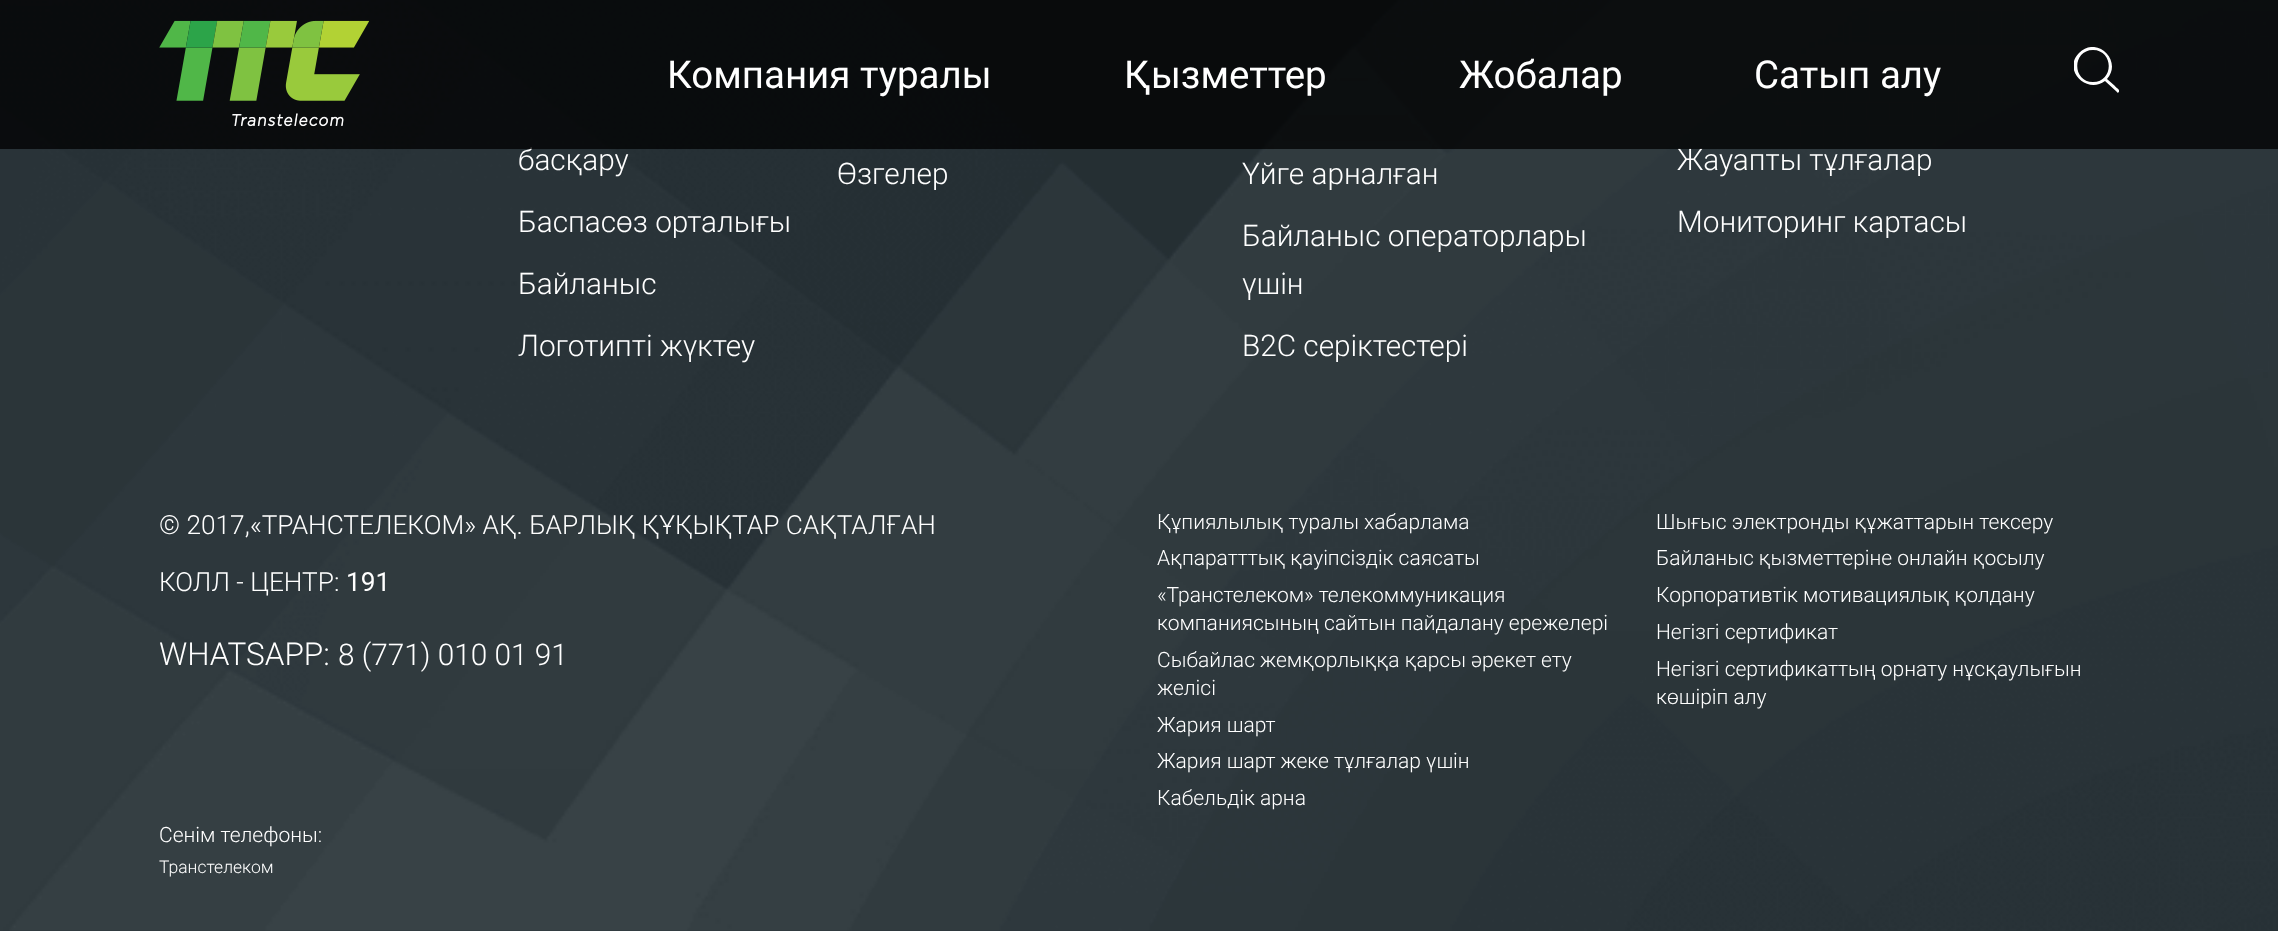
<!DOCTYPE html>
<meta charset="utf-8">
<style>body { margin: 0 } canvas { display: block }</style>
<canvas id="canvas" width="2278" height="931"></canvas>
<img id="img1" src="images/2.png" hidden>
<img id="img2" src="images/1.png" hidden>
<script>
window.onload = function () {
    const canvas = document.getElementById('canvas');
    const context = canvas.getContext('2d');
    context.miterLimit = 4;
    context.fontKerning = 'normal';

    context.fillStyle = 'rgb(35, 46, 51)';
    context.fillRect(0, 0, 2278, 931);
    context.drawImage(document.getElementById('img1'), 0, 0, 2278, 931);
    context.font = '300 29.75px Roboto';
    context.fillStyle = 'rgb(255, 255, 255)';
    context.fillText('басқару', 518, 170);
    context.fillText('Баспасөз орталығы', 518, 232);
    context.fillText('Байланыс', 518, 294);
    context.fillText('Логотипті жүктеу', 518, 356);
    context.fillText('Өзгелер', 837, 184);
    context.fillText('Үйге арналған', 1242, 184);
    context.fillText('Байланыс операторлары', 1242, 246);
    context.fillText('үшін', 1242, 294);
    context.fillText('B2C серіктестері', 1242, 356);
    context.fillText('Жауапты тұлғалар', 1677, 170);
    context.fillStyle = 'rgba(0, 0, 0, 0.75)';
    context.fillRect(0, 0, 2278, 149);
    context.save();
    context.beginPath();
    context.rect(2074, 47, 45, 46);
    context.clip();
    context.fillStyle = 'rgb(255, 255, 255)';
    context.beginPath();
    context.moveTo(2119, 92);
    context.bezierCurveTo(2118, 93, 2117, 93, 2117, 92);
    context.lineTo(2105, 81);
    context.bezierCurveTo(2087, 95, 2062, 70, 2079, 53);
    context.bezierCurveTo(2097, 35, 2123, 61, 2107, 79);
    context.lineTo(2115, 86);
    context.bezierCurveTo(2115, 87, 2121, 90, 2119, 92);
    context.closePath();
    context.moveTo(2093, 50);
    context.bezierCurveTo(2072, 50, 2072, 82, 2093, 82);
    context.bezierCurveTo(2114, 82, 2114, 50, 2093, 50);
    context.closePath();
    context.fill('evenodd');
    context.restore();
    context.font = '38.5px Roboto';
    context.fillStyle = 'rgb(255, 255, 255)';
    context.fillText('Сатып алу', 1754, 88);
    context.fillText('Жобалар', 1459, 88);
    context.fillText('Қызметтер', 1124, 88);
    context.fillText('Компания туралы', 667, 88);
    context.drawImage(document.getElementById('img2'), 159, 20, 210, 107);
    context.font = '300 29.75px Roboto';
    context.fillText('Мониторинг картасы', 1677, 232);
    context.font = '300 26.25px Roboto';
    context.fillText('© 2017,«ТРАНСТЕЛЕКОМ» АҚ. БАРЛЫҚ ҚҰҚЫҚТАР САҚТАЛҒАН', 159, 534);
    context.fillText('КОЛЛ - ЦЕНТР:', 159, 591);
    context.font = '26.25px Roboto';
    context.fillText('191', 346, 591);
    context.font = '300 31.5px Roboto';
    context.fillText('WHATSAPP:', 159, 665);
    context.font = '300 29.75px Roboto';
    context.fillText('8 (771) 010 01 91', 338, 665);
    context.font = '300 21px Roboto';
    context.fillText('Құпиялылық туралы хабарлама', 1157, 529);
    context.fillText('Ақпаратттық қауіпсіздік саясаты', 1157, 565);
    context.fillText('«Транстелеком» телекоммуникация', 1157, 602);
    context.fillText('компаниясының сайтын пайдалану ережелері', 1157, 630);
    context.fillText('Сыбайлас жемқорлыққа қарсы әрекет ету', 1157, 667);
    context.fillText('желісі', 1157, 695);
    context.fillText('Жария шарт', 1157, 732);
    context.fillText('Жария шарт жеке тұлғалар үшін', 1157, 768);
    context.fillText('Кабельдік арна', 1157, 805);
    context.fillText('Шығыс электронды құжаттарын тексеру', 1656, 529);
    context.fillText('Байланыс қызметтеріне онлайн қосылу', 1656, 565);
    context.fillText('Корпоративтік мотивациялық қолдану', 1656, 602);
    context.fillText('Негізгі сертификат', 1656, 639);
    context.fillText('Негізгі сертификаттың орнату нұсқаулығын', 1656, 676);
    context.fillText('көшіріп алу', 1656, 704);
    context.fillText('Сенім телефоны:', 159, 842);
    context.font = '300 17.5px Roboto';
    context.fillText('Транстелеком', 159, 873);
};
</script>
